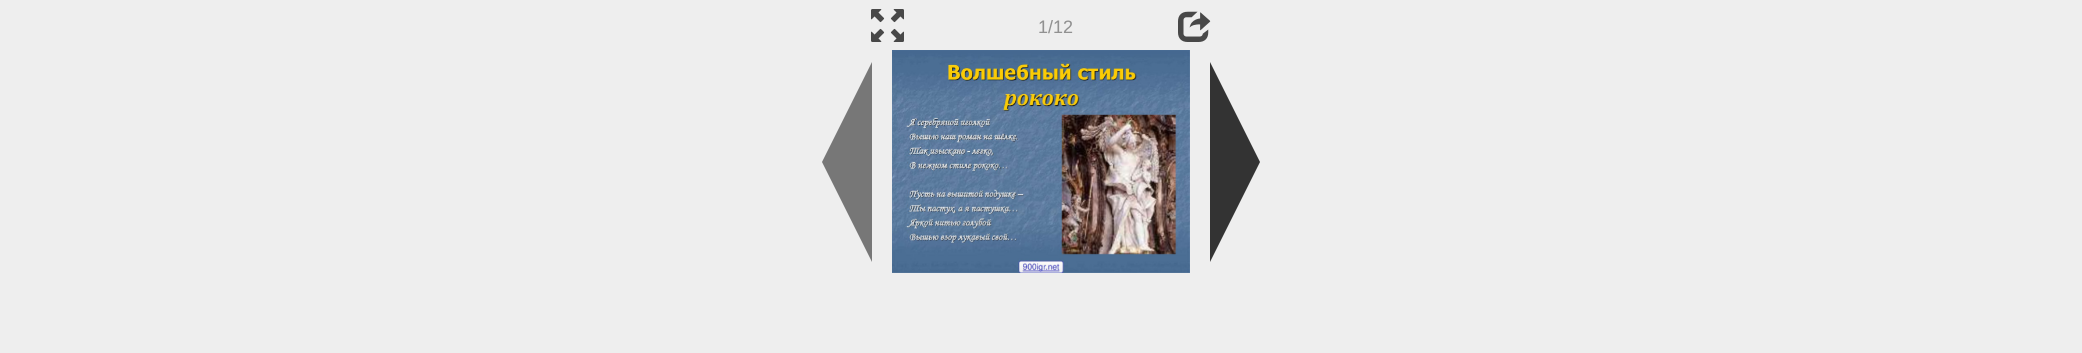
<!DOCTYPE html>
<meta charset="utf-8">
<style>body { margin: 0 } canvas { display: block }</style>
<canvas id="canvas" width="2082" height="353"></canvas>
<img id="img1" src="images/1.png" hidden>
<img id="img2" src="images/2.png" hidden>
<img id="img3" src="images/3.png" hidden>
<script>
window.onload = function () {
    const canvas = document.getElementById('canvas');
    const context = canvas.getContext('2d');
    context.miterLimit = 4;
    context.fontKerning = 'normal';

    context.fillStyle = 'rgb(238, 238, 238)';
    context.fillRect(0, 0, 2082, 353);
    context.drawImage(document.getElementById('img1'), 871, 9, 33, 33);
    context.drawImage(document.getElementById('img2'), 1178, 11, 33, 31);
    context.fillStyle = 'rgb(119, 119, 119)';
    context.beginPath();
    context.moveTo(872, 62);
    context.lineTo(872, 262);
    context.lineTo(822, 162);
    context.closePath();
    context.fill();
    context.drawImage(document.getElementById('img3'), 892, 50, 298, 223);
    context.fillStyle = 'rgb(51, 51, 51)';
    context.beginPath();
    context.moveTo(1210, 262);
    context.lineTo(1210, 62);
    context.lineTo(1260, 162);
    context.closePath();
    context.fill();
    context.font = '18px Liberation Sans';
    context.fillStyle = 'rgb(145, 145, 145)';
    context.fillText('1/12', 1038, 33);
};
</script>
